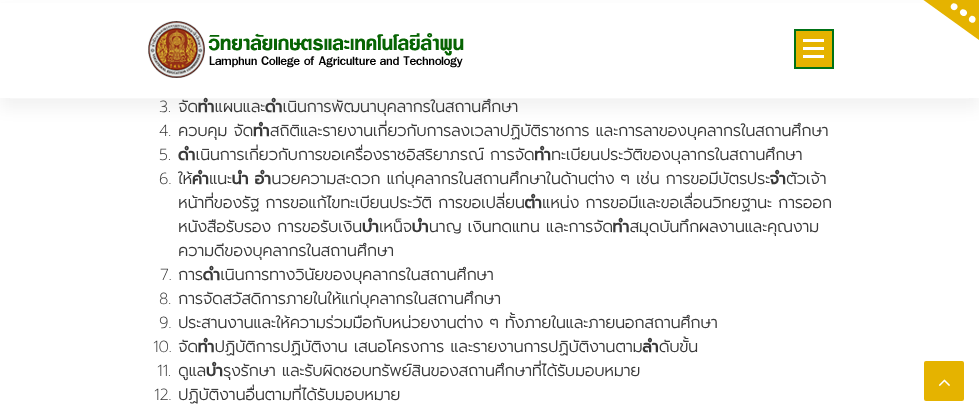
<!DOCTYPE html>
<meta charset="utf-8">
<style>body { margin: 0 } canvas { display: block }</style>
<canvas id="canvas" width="979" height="416"></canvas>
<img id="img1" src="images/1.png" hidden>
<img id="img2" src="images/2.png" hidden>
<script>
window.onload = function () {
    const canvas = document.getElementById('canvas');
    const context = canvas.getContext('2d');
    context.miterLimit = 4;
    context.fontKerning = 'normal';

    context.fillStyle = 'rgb(255, 255, 255)';
    context.fillRect(0, 0, 979, 416);
    context.fillStyle = 'rgba(0, 0, 0, 0.05)';
    context.filter = 'blur(7.5px)';
    context.beginPath();
    context.rect(0, 9, 979, 100);
    context.fill();
    context.filter = 'none';
    context.fillStyle = 'rgb(255, 255, 255)';
    context.fillRect(0, 3, 979, 95);
    context.fillStyle = 'rgb(247, 247, 247)';
    context.fillRect(10, 98, 959, 1);
    context.drawImage(document.getElementById('img1'), 148, 21, 316, 57);
    context.fillStyle = 'rgb(229, 179, 0)';
    context.beginPath();
    context.rect(795, 30, 38, 38);
    context.fill();
    context.strokeStyle = 'rgb(0, 114, 22)';
    context.lineWidth = 2;
    context.stroke();
    context.fillStyle = 'rgb(255, 255, 255)';
    context.fillRect(803, 39, 21, 3);
    context.fillRect(803, 47, 21, 3);
    context.fillRect(803, 55, 21, 3);
    context.fillStyle = 'rgb(229, 179, 0)';
    context.beginPath();
    context.moveTo(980, -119);
    context.lineTo(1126, -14);
    context.lineTo(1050, 91);
    context.lineTo(904, -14);
    context.closePath();
    context.fill();
    context.beginPath();
    context.moveTo(937, 9);
    context.lineTo(952, -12);
    context.lineTo(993, 17);
    context.lineTo(978, 38);
    context.closePath();
    context.fill();
    context.fillStyle = 'rgb(255, 255, 255)';
    context.beginPath();
    context.moveTo(960.5, 10.5);
    context.bezierCurveTo(963, 7, 969, 11, 966.5, 14.5);
    context.bezierCurveTo(964, 18.5, 958, 14, 960.5, 10.5);
    context.closePath();
    context.moveTo(951.5, 4.5);
    context.bezierCurveTo(954, 1, 959.5, 5, 957, 8.5);
    context.bezierCurveTo(954.5, 12.5, 948.5, 8.5, 951.5, 4.5);
    context.closePath();
    context.moveTo(969.5, 17.5);
    context.bezierCurveTo(972, 13.5, 977.5, 17.5, 975, 21.5);
    context.bezierCurveTo(972.5, 25, 967, 21, 969.5, 17.5);
    context.closePath();
    context.fill();
    context.fillStyle = 'rgb(229, 179, 0)';
    context.beginPath();
    context.roundRect(924, 361, 40, 40, 2);
    context.fill();
    context.drawImage(document.getElementById('img2'), 938, 379, 12, 7);
    context.font = '200 16px Prompt';
    context.fillStyle = 'rgb(57, 57, 57)';
    context.fillText('3.', 159, 112);
    context.font = 'bold 16px Prompt';
    context.fillText('จัดทำแผนและดำเนินการพัฒนาบุคลากรในสถานศึกษา', 178, 112);
    context.font = '200 16px Prompt';
    context.fillText('4.', 159, 136);
    context.font = 'bold 16px Prompt';
    context.fillText('ควบคุม จัดทำสถิติและรายงานเกี่ยวกับการลงเวลาปฏิบัติราชการ และการลาของบุคลากรในสถานศึกษา', 178, 136);
    context.font = '200 16px Prompt';
    context.fillText('5.', 159, 160);
    context.font = 'bold 16px Prompt';
    context.fillText('ดำเนินการเกี่ยวกับการขอเครื่องราชอิสริยาภรณ์ การจัดทำทะเบียนประวัติของบุลากรในสถานศึกษา', 178, 160);
    context.font = '200 16px Prompt';
    context.fillText('6.', 159, 184);
    context.font = 'bold 16px Prompt';
    context.fillText('ให้คำแนะนำ อำนวยความสะดวก แก่บุคลากรในสถานศึกษาในด้านต่าง ๆ เช่น การขอมีบัตรประจำตัวเจ้า', 178, 184);
    context.fillText('หน้าที่ของรัฐ การขอแก้ไขทะเบียนประวัติ การขอเปลี่ยนตำแหน่ง การขอมีและขอเลื่อนวิทยฐานะ การออก', 178, 208);
    context.fillText('หนังสือรับรอง การขอรับเงินบำเหน็จบำนาญ เงินทดแทน และการจัดทำสมุดบันทึกผลงานและคุณงาม', 178, 232);
    context.fillText('ความดีของบุคลากรในสถานศึกษา', 178, 256);
    context.font = '200 16px Prompt';
    context.fillText('7.', 160, 280);
    context.font = 'bold 16px Prompt';
    context.fillText('การดำเนินการทางวินัยของบุคลากรในสถานศึกษา', 178, 280);
    context.font = '200 16px Prompt';
    context.fillText('8.', 159, 304);
    context.font = 'bold 16px Prompt';
    context.fillText('การจัดสวัสดิการภายในให้แก่บุคลากรในสถานศึกษา', 178, 304);
    context.font = '200 16px Prompt';
    context.fillText('9.', 159, 328);
    context.font = 'bold 16px Prompt';
    context.fillText('ประสานงานและให้ความร่วมมือกับหน่วยงานต่าง ๆ ทั้งภายในและภายนอกสถานศึกษา', 178, 328);
    context.font = '200 16px Prompt';
    context.fillText('10.', 153, 352);
    context.font = 'bold 16px Prompt';
    context.fillText('จัดทำปฏิบัติการปฏิบัติงาน เสนอโครงการ และรายงานการปฏิบัติงานตามลำดับขั้น', 178, 352);
    context.font = '200 16px Prompt';
    context.fillText('11.', 157, 376);
    context.font = 'bold 16px Prompt';
    context.fillText('ดูแลบำรุงรักษา และรับผิดชอบทรัพย์สินของสถานศึกษาที่ได้รับมอบหมาย', 178, 376);
    context.font = '200 16px Prompt';
    context.fillText('12.', 154, 400);
    context.font = 'bold 16px Prompt';
    context.fillText('ปฏิบัติงานอื่นตามที่ได้รับมอบหมาย', 178, 400);
};
</script>
